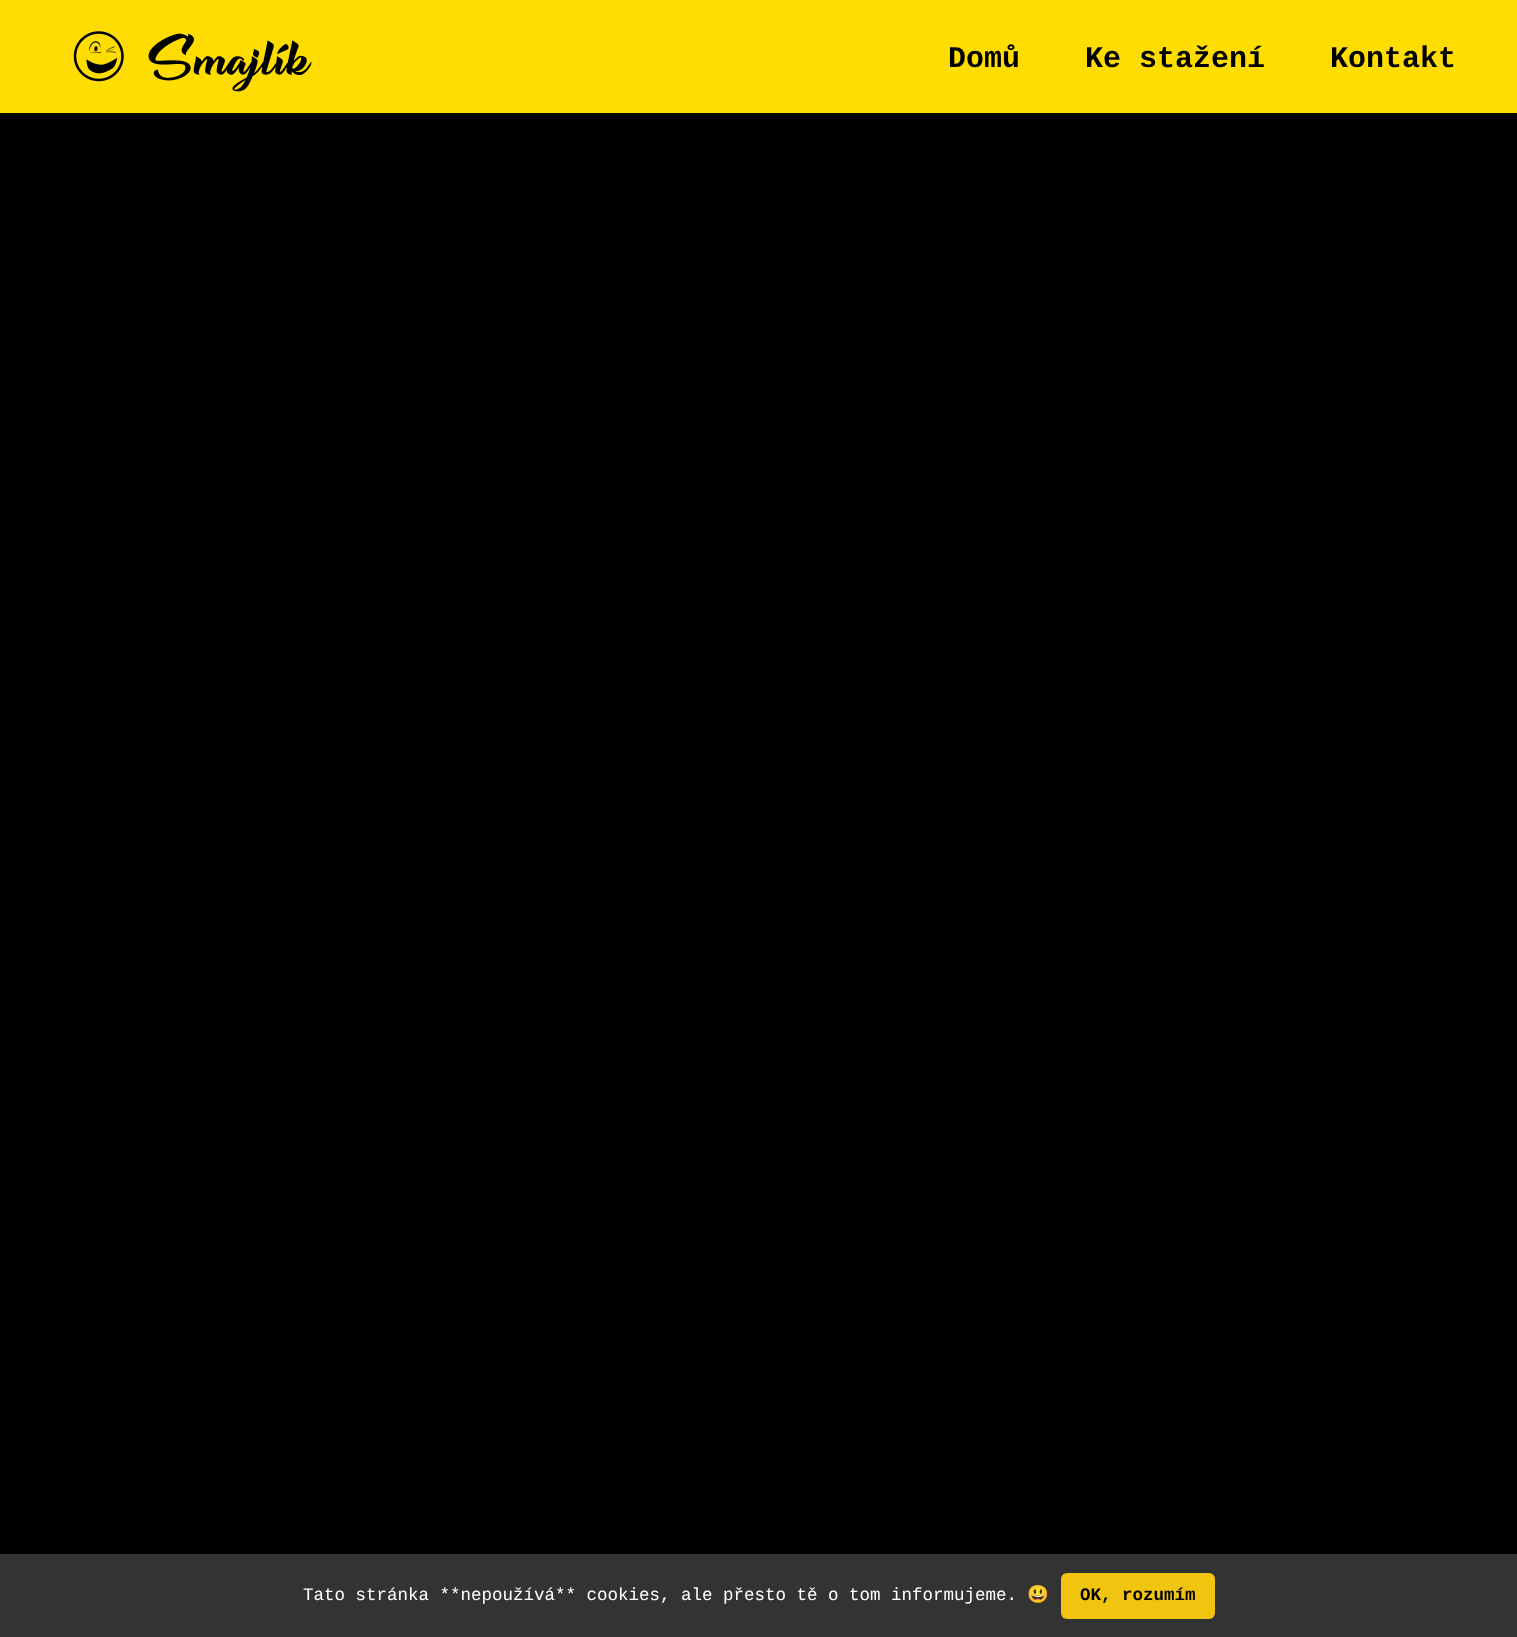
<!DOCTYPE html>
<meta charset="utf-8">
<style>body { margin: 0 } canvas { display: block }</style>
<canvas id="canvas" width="1517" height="1637"></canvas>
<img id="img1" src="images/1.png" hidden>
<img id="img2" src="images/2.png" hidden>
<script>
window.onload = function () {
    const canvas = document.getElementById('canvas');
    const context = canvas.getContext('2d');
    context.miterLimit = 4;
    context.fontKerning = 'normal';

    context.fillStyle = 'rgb(0, 0, 0)';
    context.fillRect(0, 0, 1517, 1637);
    context.fillStyle = 'rgb(255, 221, 0)';
    context.fillRect(0, 0, 1517, 113);
    context.drawImage(document.getElementById('img1'), 73, 31, 51, 51);
    context.drawImage(document.getElementById('img2'), 148, 33, 164, 59);
    context.fillStyle = 'rgb(51, 51, 51)';
    context.fillRect(0, 1554, 1517, 83);
    context.fillStyle = 'rgb(241, 196, 15)';
    context.beginPath();
    context.roundRect(1061, 1573, 154, 46, 6);
    context.fill();
    context.font = 'bold 30px Liberation Mono';
    context.fillStyle = 'rgb(0, 0, 0)';
    context.fillText('Domů', 948, 67);
    context.fillText('Ke stažení', 1085, 67);
    context.fillText('Kontakt', 1330, 67);
    context.font = '17.5px Liberation Mono';
    context.fillStyle = 'rgb(255, 255, 255)';
    context.fillText('Tato stránka **nepoužívá** cookies, ale přesto tě o tom informujeme.', 303, 1600);
    context.font = '17.5px Noto Color Emoji';
    context.fillText('😃', 1027, 1600);
    context.font = 'bold 17.5px Liberation Mono';
    context.fillStyle = 'rgb(0, 0, 0)';
    context.fillText('OK, rozumím', 1080, 1600);
};
</script>
